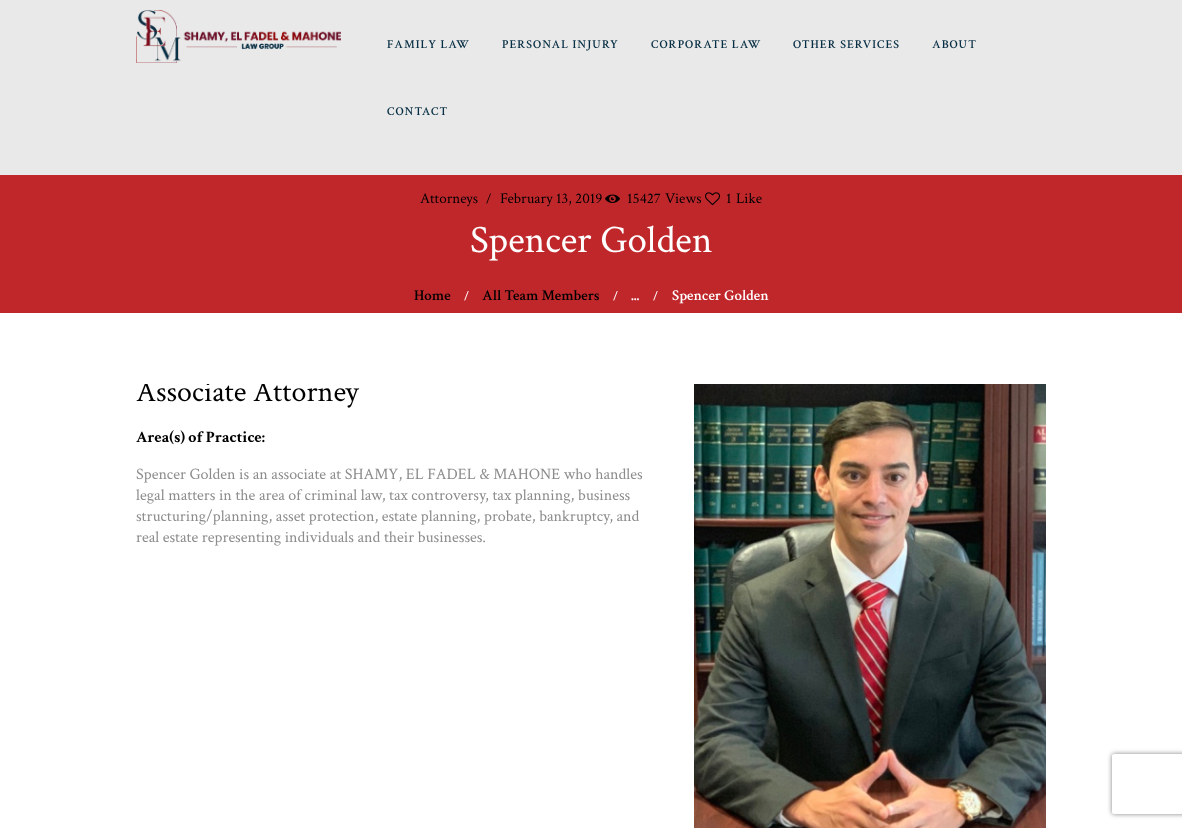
<!DOCTYPE html>
<meta charset="utf-8">
<style>body { margin: 0 } canvas { display: block }</style>
<canvas id="canvas" width="1182" height="828"></canvas>
<img id="img1" src="images/1.png" hidden>
<img id="img2" src="images/2.png" hidden>
<img id="img3" src="images/3.png" hidden>
<img id="img4" src="images/4.png" hidden>
<script>
window.onload = function () {
    const canvas = document.getElementById('canvas');
    const context = canvas.getContext('2d');
    context.miterLimit = 4;
    context.fontKerning = 'normal';

    context.fillStyle = 'rgb(255, 255, 255)';
    context.fillRect(0, 0, 1182, 828);
    context.fillStyle = 'rgb(233, 233, 233)';
    context.fillRect(0, 0, 1182, 175);
    context.drawImage(document.getElementById('img1'), 136, 10, 205, 53);
    context.fillStyle = 'rgb(192, 39, 43)';
    context.fillRect(0, 175, 1182, 138);
    context.drawImage(document.getElementById('img2'), 605, 194, 15, 9);
    context.drawImage(document.getElementById('img3'), 705, 192, 15, 14);
    context.drawImage(document.getElementById('img4'), 694, 384, 352, 444);
    context.save();
    context.beginPath();
    context.moveTo(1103, 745);
    context.lineTo(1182, 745);
    context.lineTo(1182, 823);
    context.lineTo(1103, 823);
    context.closePath();
    context.moveTo(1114, 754);
    context.lineTo(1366, 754);
    context.bezierCurveTo(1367, 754, 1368, 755, 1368, 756);
    context.lineTo(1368, 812);
    context.bezierCurveTo(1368, 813, 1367, 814, 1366, 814);
    context.lineTo(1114, 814);
    context.bezierCurveTo(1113, 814, 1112, 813, 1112, 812);
    context.lineTo(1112, 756);
    context.bezierCurveTo(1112, 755, 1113, 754, 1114, 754);
    context.closePath();
    context.clip('evenodd');
    context.fillStyle = 'rgb(128, 128, 128)';
    context.filter = 'blur(2.5px)';
    context.beginPath();
    context.roundRect(1112, 754, 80, 60, 2);
    context.fill();
    context.filter = 'none';
    context.restore();
    context.letterSpacing = '1px';
    context.font = '600 12px Crimson Text';
    context.fillStyle = 'rgb(7, 46, 67)';
    context.fillText('FAMILY LAW', 387, 48);
    context.fillText('PERSONAL INJURY', 502, 48);
    context.fillText('CORPORATE LAW', 651, 48);
    context.fillText('OTHER SERVICES', 793, 48);
    context.fillText('ABOUT', 932, 48);
    context.fillText('CONTACT', 387, 115);
    context.letterSpacing = '0px';
    context.font = '15px Crimson Text';
    context.fillStyle = 'rgb(0, 0, 0)';
    context.fillText('Attorneys', 420, 203);
    context.font = '13px Crimson Text';
    context.fillText('/', 486, 203);
    context.font = '15px Crimson Text';
    context.fillText('February 13, 2019', 500, 203);
    context.fillText('15427', 627, 203);
    context.fillText('Views', 665, 203);
    context.fillText('1', 726, 203);
    context.fillText('Like', 736, 203);
    context.font = '39px Crimson Text';
    context.fillStyle = 'rgb(255, 255, 255)';
    context.fillText('Spencer Golden', 470, 252);
    context.font = '600 15px Crimson Text';
    context.fillStyle = 'rgb(0, 0, 0)';
    context.fillText('Home', 414, 300);
    context.font = '600 12px Crimson Text';
    context.fillStyle = 'rgb(255, 255, 255)';
    context.fillText('/', 464, 300);
    context.font = '600 15px Crimson Text';
    context.fillStyle = 'rgb(0, 0, 0)';
    context.fillText('All Team Members', 482, 300);
    context.font = '600 12px Crimson Text';
    context.fillStyle = 'rgb(255, 255, 255)';
    context.fillText('/', 613, 300);
    context.font = '600 15px Crimson Text';
    context.fillText('...', 631, 300);
    context.font = '600 12px Crimson Text';
    context.fillText('/', 653, 300);
    context.font = '600 15px Crimson Text';
    context.fillText('Spencer Golden', 672, 300);
    context.save();
    context.beginPath();
    context.rect(136, 384, 910, 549);
    context.clip();
    context.font = '30px Crimson Text';
    context.fillStyle = 'rgb(0, 0, 0)';
    context.fillText('Associate Attorney', 136, 401);
    context.restore();
    context.font = 'bold 16px Crimson Text';
    context.fillStyle = 'rgb(0, 0, 0)';
    context.fillText('Area(s) of Practice:', 136, 442);
    context.font = '16px Crimson Text';
    context.fillStyle = 'rgb(140, 140, 140)';
    context.fillText('Spencer Golden is an associate at SHAMY, EL FADEL & MAHONE who handles', 136, 479);
    context.fillText('legal matters in the area of criminal law, tax controversy, tax planning, business', 136, 500);
    context.fillText('structuring/planning, asset protection, estate planning, probate, bankruptcy, and', 136, 521);
    context.fillText('real estate representing individuals and their businesses.', 136, 542);
};
</script>
